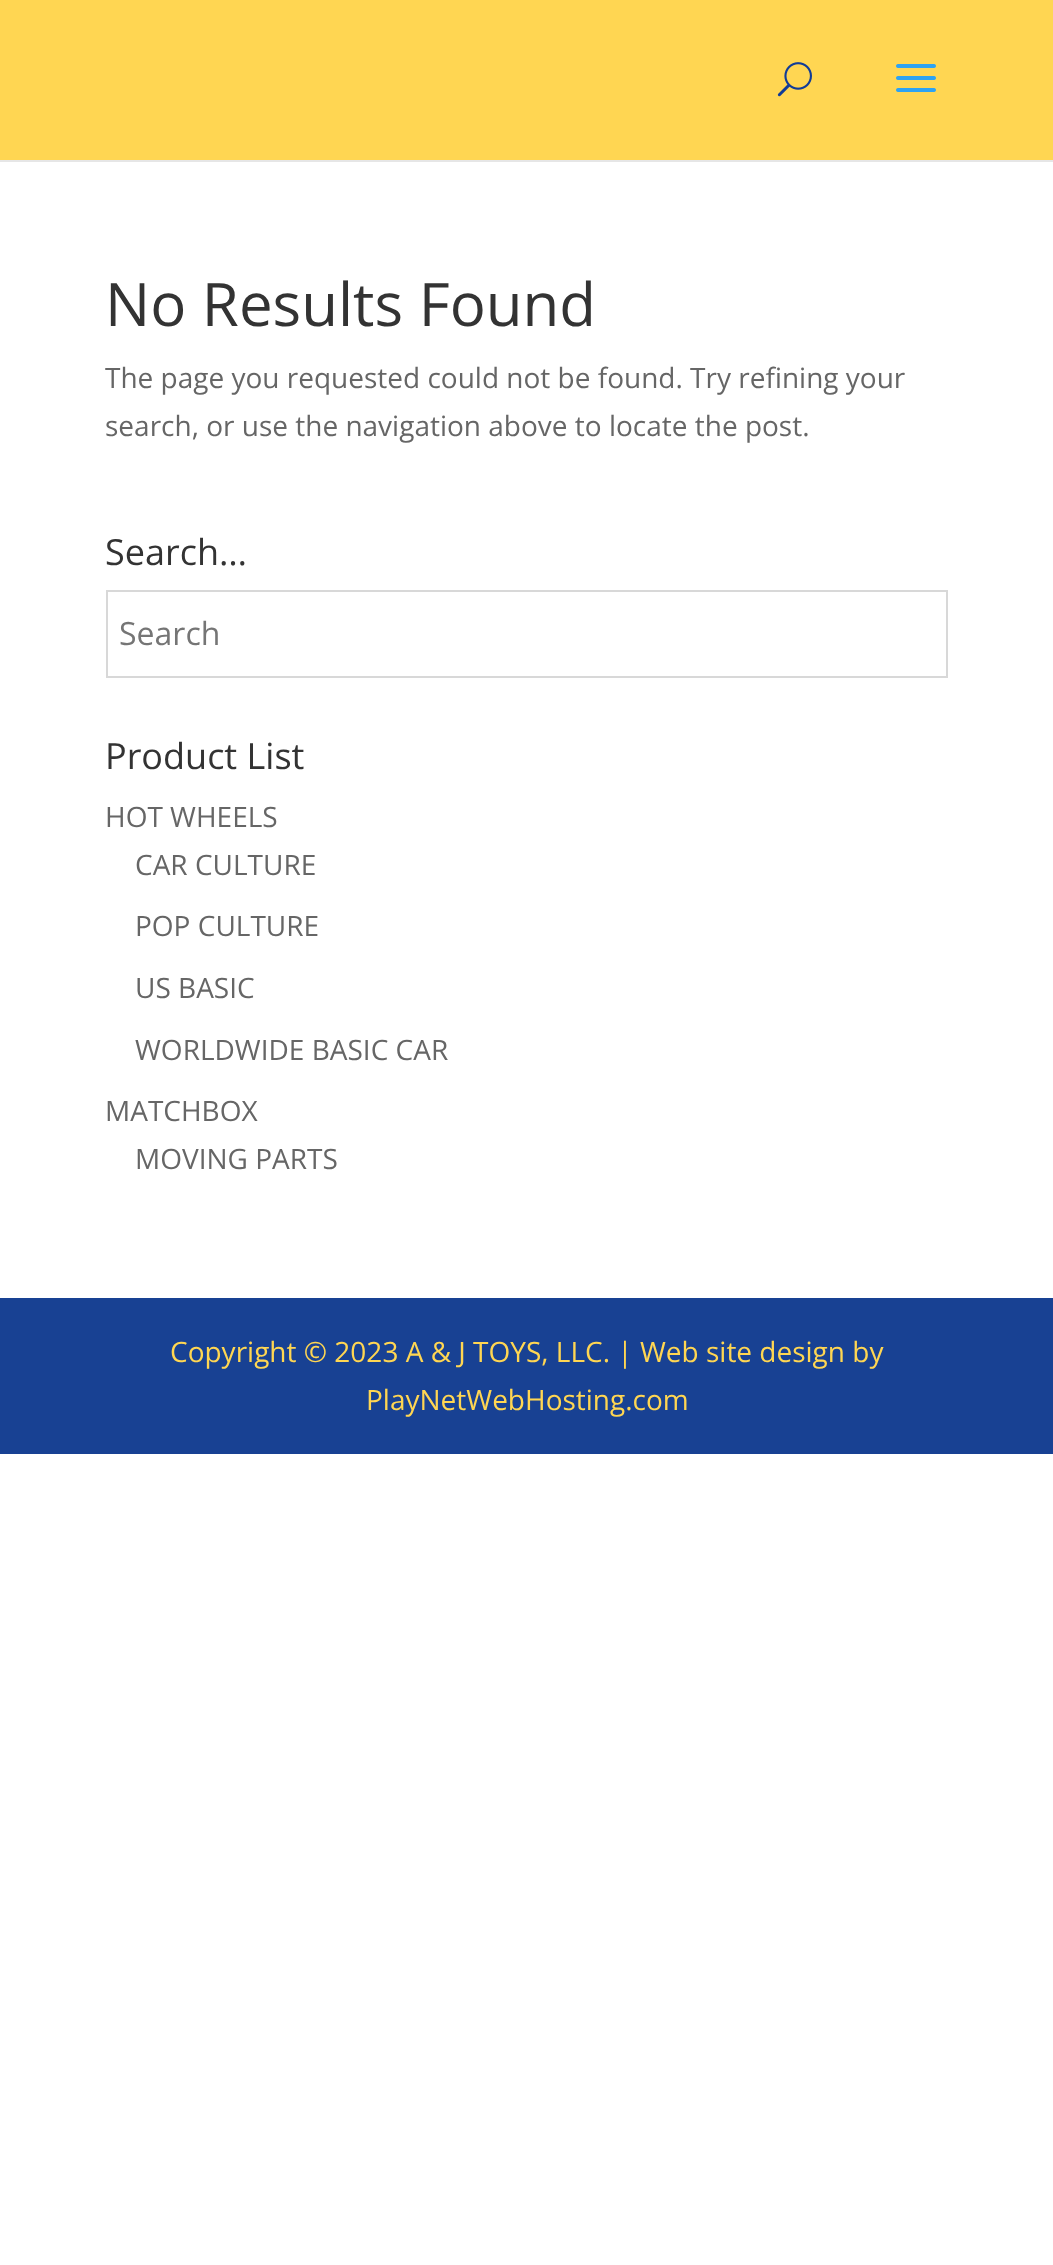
<!DOCTYPE html>
<meta charset="utf-8">
<style>body { margin: 0 } canvas { display: block }</style>
<canvas id="canvas" width="1053" height="2265"></canvas>
<img id="img1" src="images/1.png" hidden>
<img id="img2" src="images/2.png" hidden>
<script>
window.onload = function () {
    const canvas = document.getElementById('canvas');
    const context = canvas.getContext('2d');
    context.miterLimit = 4;
    context.fontKerning = 'normal';

    context.fillStyle = 'rgb(255, 255, 255)';
    context.fillRect(0, 0, 1053, 2265);
    context.fillStyle = 'rgb(230, 230, 230)';
    context.fillRect(0, 160, 1053, 2);
    context.fillStyle = 'rgb(255, 214, 82)';
    context.fillRect(0, 0, 1053, 160);
    context.drawImage(document.getElementById('img1'), 777, 62, 35, 35);
    context.drawImage(document.getElementById('img2'), 896, 64, 40, 28);
    context.strokeStyle = 'rgb(216, 216, 216)';
    context.lineWidth = 2;
    context.strokeRect(107, 591, 840, 86);
    context.fillStyle = 'rgb(24, 65, 147)';
    context.fillRect(0, 1298, 1053, 156);
    context.font = '60px Open Sans';
    context.fillStyle = 'rgb(51, 51, 51)';
    context.fillText('No Results Found', 105, 326);
    context.font = '28px Open Sans';
    context.fillStyle = 'rgb(102, 102, 102)';
    context.fillText('The page you requested could not be found. Try refining your', 105, 388);
    context.fillText('search, or use the navigation above to locate the post.', 105, 436);
    context.font = '36px Open Sans';
    context.fillStyle = 'rgb(51, 51, 51)';
    context.fillText('Search…', 105, 565);
    context.font = '32px Open Sans';
    context.fillStyle = 'rgb(117, 117, 117)';
    context.fillText('Search', 119, 645);
    context.font = '36px Open Sans';
    context.fillStyle = 'rgb(51, 51, 51)';
    context.fillText('Product List', 105, 769);
    context.font = '28px Open Sans';
    context.fillStyle = 'rgb(102, 102, 102)';
    context.fillText('HOT WHEELS', 105, 827);
    context.fillText('CAR CULTURE', 135, 875);
    context.fillText('POP CULTURE', 135, 936);
    context.fillText('US BASIC', 135, 998);
    context.fillText('WORLDWIDE BASIC CAR', 135, 1060);
    context.fillText('MATCHBOX', 105, 1121);
    context.fillText('MOVING PARTS', 135, 1169);
    context.fillStyle = 'rgb(255, 214, 82)';
    context.fillText('Copyright © 2023 A & J TOYS, LLC. | Web site design by', 170, 1362);
    context.fillText('PlayNetWebHosting.com', 366, 1410);
};
</script>
